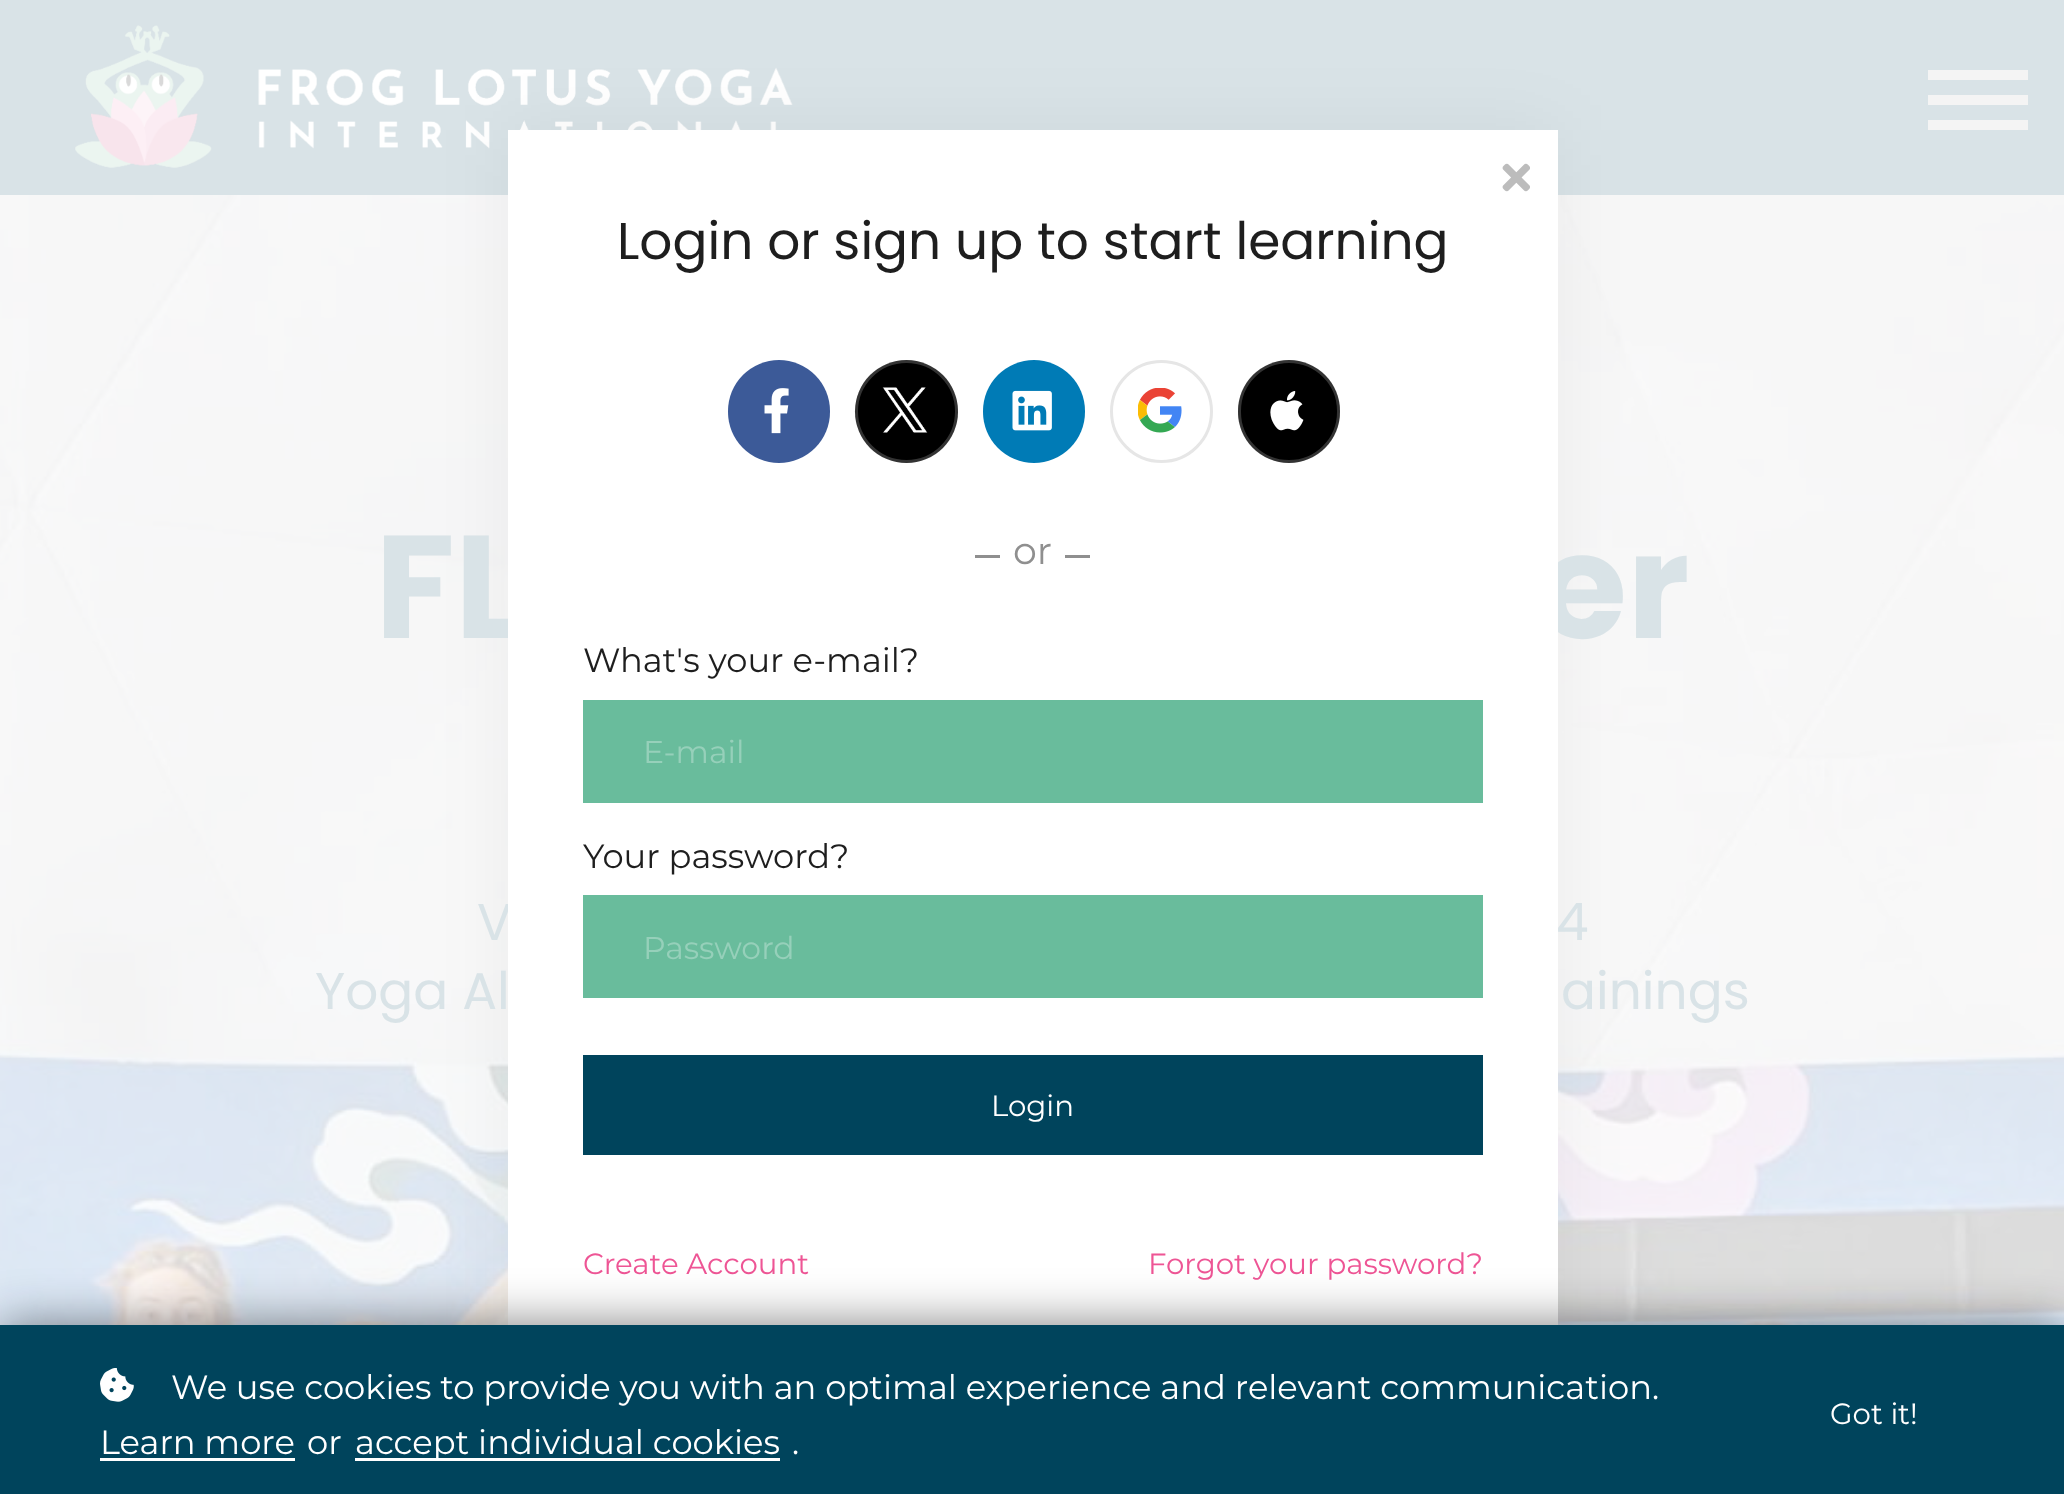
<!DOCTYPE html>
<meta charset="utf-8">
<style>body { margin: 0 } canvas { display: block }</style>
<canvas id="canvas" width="2064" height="1494"></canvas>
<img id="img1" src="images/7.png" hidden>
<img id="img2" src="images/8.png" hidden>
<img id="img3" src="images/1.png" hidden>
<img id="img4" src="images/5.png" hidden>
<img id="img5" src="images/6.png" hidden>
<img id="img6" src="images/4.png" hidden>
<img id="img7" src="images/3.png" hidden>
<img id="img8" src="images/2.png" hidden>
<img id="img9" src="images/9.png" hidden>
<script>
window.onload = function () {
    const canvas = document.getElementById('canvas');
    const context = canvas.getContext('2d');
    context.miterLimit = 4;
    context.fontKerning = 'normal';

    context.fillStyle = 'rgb(255, 255, 255)';
    context.fillRect(0, 0, 2064, 1494);
    context.fillStyle = 'rgb(217, 227, 231)';
    context.fillRect(0, 0, 2064, 195);
    context.drawImage(document.getElementById('img1'), 74, 25, 719, 143);
    context.drawImage(document.getElementById('img2'), 0, 195, 2064, 1130);
    context.fillStyle = 'rgba(0, 0, 0, 0.05)';
    context.filter = 'blur(37.5px)';
    context.beginPath();
    context.rect(508, 130, 1050, 1235);
    context.fill();
    context.filter = 'none';
    context.fillStyle = 'rgb(244, 244, 244)';
    context.fillRect(1928, 120, 100, 10);
    context.fillRect(1928, 70, 100, 10);
    context.fillRect(1928, 95, 100, 10);
    context.font = 'bold 146px Poppins';
    context.fillStyle = 'rgb(217, 227, 231)';
    context.fillText('FL', 375, 638);
    context.fillText('er', 1537, 638);
    context.font = '51.75px Poppins';
    context.fillText('V', 477, 940);
    context.fillText('4', 1556, 940);
    context.fillStyle = 'rgb(255, 255, 255)';
    context.fillRect(508, 130, 1050, 1195);
    context.drawImage(document.getElementById('img3'), 1502, 163, 28, 29);
    context.fillStyle = 'rgb(0, 68, 92)';
    context.fillRect(583, 1055, 900, 100);
    context.font = '29.25px Montserrat';
    context.fillStyle = 'rgb(255, 255, 255)';
    context.fillText('Login', 991, 1116);
    context.fillStyle = 'rgb(143, 143, 143)';
    context.fillRect(1065, 555, 25, 3);
    context.fillRect(975, 555, 25, 3);
    context.font = '38px Montserrat';
    context.fillText('or', 1013, 564);
    context.beginPath();
    context.arc(1161.5, 411.5, 50, 0, 2 * Math.PI);
    context.strokeStyle = 'rgb(230, 230, 230)';
    context.lineWidth = 3;
    context.stroke();
    context.drawImage(document.getElementById('img4'), 1138, 388, 44, 45);
    context.font = '29.25px Montserrat';
    context.fillStyle = 'rgb(238, 85, 149)';
    context.fillText('Forgot your password?', 1148, 1274);
    context.fillText('Create Account', 583, 1274);
    context.fillStyle = 'rgb(105, 188, 156)';
    context.fillRect(583, 895, 900, 103);
    context.font = '31.5px Montserrat';
    context.fillStyle = 'rgb(150, 208, 186)';
    context.fillText('Password', 643, 959);
    context.font = '33.75px Montserrat';
    context.fillStyle = 'rgb(30, 30, 30)';
    context.fillText('Your password?', 583, 868);
    context.fillStyle = 'rgb(105, 188, 156)';
    context.fillRect(583, 700, 900, 103);
    context.font = '31.5px Montserrat';
    context.fillStyle = 'rgb(150, 208, 186)';
    context.fillText('E-mail', 643, 763);
    context.font = '33.75px Montserrat';
    context.fillStyle = 'rgb(30, 30, 30)';
    context.fillText('What\'s your e-mail?', 583, 672);
    context.fillStyle = 'rgb(0, 0, 0)';
    context.beginPath();
    context.roundRect(1238, 360, 102, 103, 51);
    context.fill();
    context.beginPath();
    context.roundRect(1239.5, 361.5, 99, 100, 49.5);
    context.strokeStyle = 'rgba(255, 255, 255, 0.2)';
    context.stroke();
    context.drawImage(document.getElementById('img5'), 1270, 391, 34, 40);
    context.fillStyle = 'rgb(0, 123, 182)';
    context.beginPath();
    context.roundRect(983, 360, 102, 103, 51);
    context.fill();
    context.drawImage(document.getElementById('img6'), 1012, 390, 40, 41);
    context.fillStyle = 'rgb(0, 0, 0)';
    context.beginPath();
    context.arc(906.5, 411.5, 51.5, 0, 2 * Math.PI);
    context.fill();
    context.beginPath();
    context.arc(906.5, 411.5, 50, 0, 2 * Math.PI);
    context.stroke();
    context.drawImage(document.getElementById('img7'), 882, 387, 46, 46);
    context.fillStyle = 'rgb(60, 90, 152)';
    context.beginPath();
    context.roundRect(728, 360, 102, 103, 51);
    context.fill();
    context.drawImage(document.getElementById('img8'), 764, 388, 25, 46);
    context.font = '51.75px Poppins';
    context.fillStyle = 'rgb(30, 30, 30)';
    context.fillText('Login or sign up to start learning', 617, 259);
    context.fillStyle = 'rgb(217, 227, 231)';
    context.fillText('Yoga Al', 315, 1009);
    context.fillText('ainings', 1561, 1009);
    context.fillStyle = 'rgba(0, 0, 0, 0.5)';
    context.filter = 'blur(25px)';
    context.beginPath();
    context.rect(0, 1325, 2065, 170);
    context.fill();
    context.filter = 'none';
    context.fillStyle = 'rgb(0, 68, 92)';
    context.fillRect(0, 1325, 2064, 169);
    context.drawImage(document.getElementById('img9'), 100, 1368, 34, 34);
    context.font = '33.75px Montserrat';
    context.fillStyle = 'rgb(255, 255, 255)';
    context.fillText('We use cookies to provide you with an optimal experience and relevant communication.', 171, 1399);
    context.fillText('Learn more', 100, 1454);
    context.fillRect(100, 1458, 195, 3);
    context.fillText('or', 307, 1454);
    context.fillRect(355, 1458, 425, 3);
    context.fillText('accept individual cookies', 355, 1454);
    context.fillText('.', 792, 1454);
    context.font = '29.25px Montserrat';
    context.fillText('Got it!', 1830, 1424);
};
</script>
